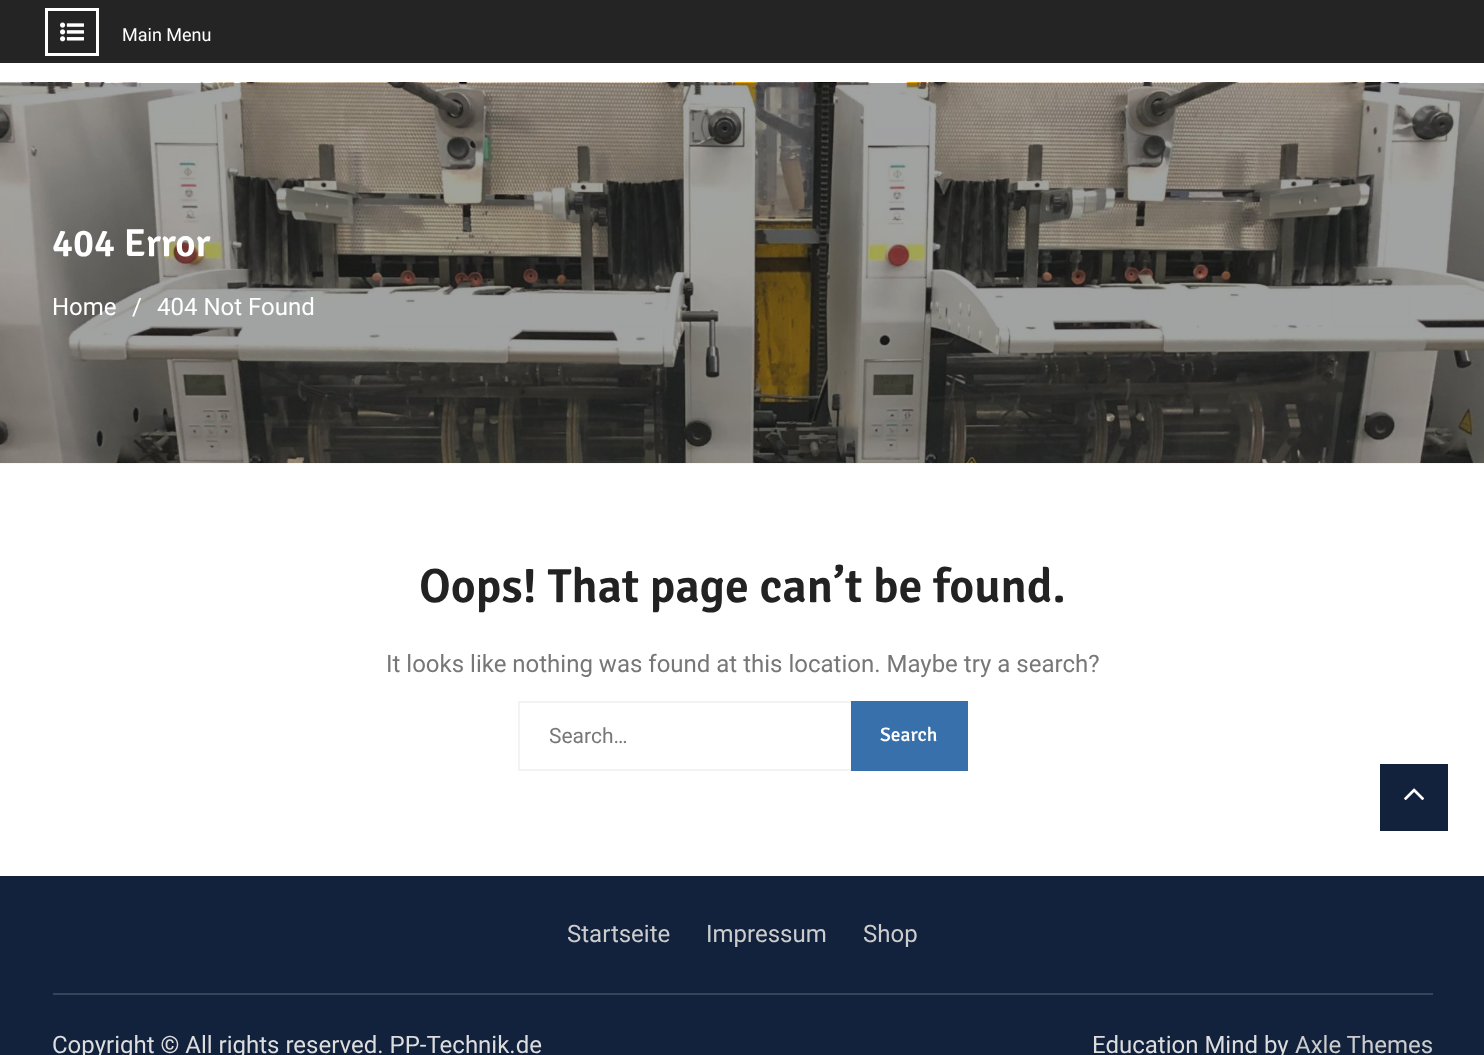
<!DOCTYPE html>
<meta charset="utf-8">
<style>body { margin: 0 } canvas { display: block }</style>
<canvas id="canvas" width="1484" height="1055"></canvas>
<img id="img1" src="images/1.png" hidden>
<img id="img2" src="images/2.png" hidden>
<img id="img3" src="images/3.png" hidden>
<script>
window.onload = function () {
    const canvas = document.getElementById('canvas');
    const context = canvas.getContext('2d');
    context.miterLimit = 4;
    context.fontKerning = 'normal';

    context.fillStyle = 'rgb(255, 255, 255)';
    context.fillRect(0, 0, 1484, 1055);
    context.fillStyle = 'rgb(36, 36, 36)';
    context.fillRect(0, 0, 1484, 63);
    context.strokeStyle = 'rgb(255, 255, 254)';
    context.lineWidth = 3;
    context.strokeRect(46.5, 9.5, 51, 45);
    context.drawImage(document.getElementById('img1'), 60, 22, 24, 20);
    context.fillStyle = 'rgb(247, 247, 247)';
    context.fillRect(0, 463, 1484, 1);
    context.drawImage(document.getElementById('img2'), 0, 82, 1484, 381);
    context.strokeStyle = 'rgb(245, 242, 242)';
    context.lineWidth = 2;
    context.strokeRect(519, 702, 448, 68);
    context.fillStyle = 'rgb(55, 112, 171)';
    context.fillRect(851, 701, 117, 70);
    context.fillStyle = 'rgb(18, 34, 61)';
    context.fillRect(0, 876, 1484, 179);
    context.fillStyle = 'rgb(55, 68, 90)';
    context.fillRect(53, 993, 1380, 2);
    context.fillStyle = 'rgb(18, 34, 61)';
    context.fillRect(1380, 764, 68, 67);
    context.drawImage(document.getElementById('img3'), 1404, 788, 21, 12);
    context.font = '18px Roboto';
    context.fillStyle = 'rgb(255, 255, 255)';
    context.fillText('Main Menu', 122, 41);
    context.font = '600 39px Signika';
    context.fillText('404 Error', 52, 256);
    context.font = '24px Roboto';
    context.fillText('Home', 52, 315);
    context.fillText('/', 132, 315);
    context.fillText('404 Not Found', 157, 315);
    context.font = '600 48px Signika';
    context.fillStyle = 'rgb(34, 34, 34)';
    context.fillText('Oops! That page can’t be found.', 419, 602);
    context.font = '24px Roboto';
    context.fillStyle = 'rgb(119, 119, 119)';
    context.fillText('It looks like nothing was found at this location. Maybe try a search?', 386, 672);
    context.font = '21px Roboto';
    context.fillText('Search…', 549, 743);
    context.font = '500 19.5px Signika';
    context.fillStyle = 'rgb(255, 255, 255)';
    context.fillText('Search', 880, 741);
    context.font = '24px Roboto';
    context.fillStyle = 'rgb(204, 204, 204)';
    context.fillText('Startseite', 567, 942);
    context.fillText('Impressum', 706, 942);
    context.fillText('Shop', 863, 942);
    context.fillStyle = 'rgb(221, 221, 221)';
    context.fillText('Copyright © All rights reserved. PP-Technik.de', 52, 1053);
    context.fillText('Education Mind by', 1092, 1053);
    context.fillStyle = 'rgb(204, 204, 204)';
    context.fillText('Axle Themes', 1295, 1053);
};
</script>
